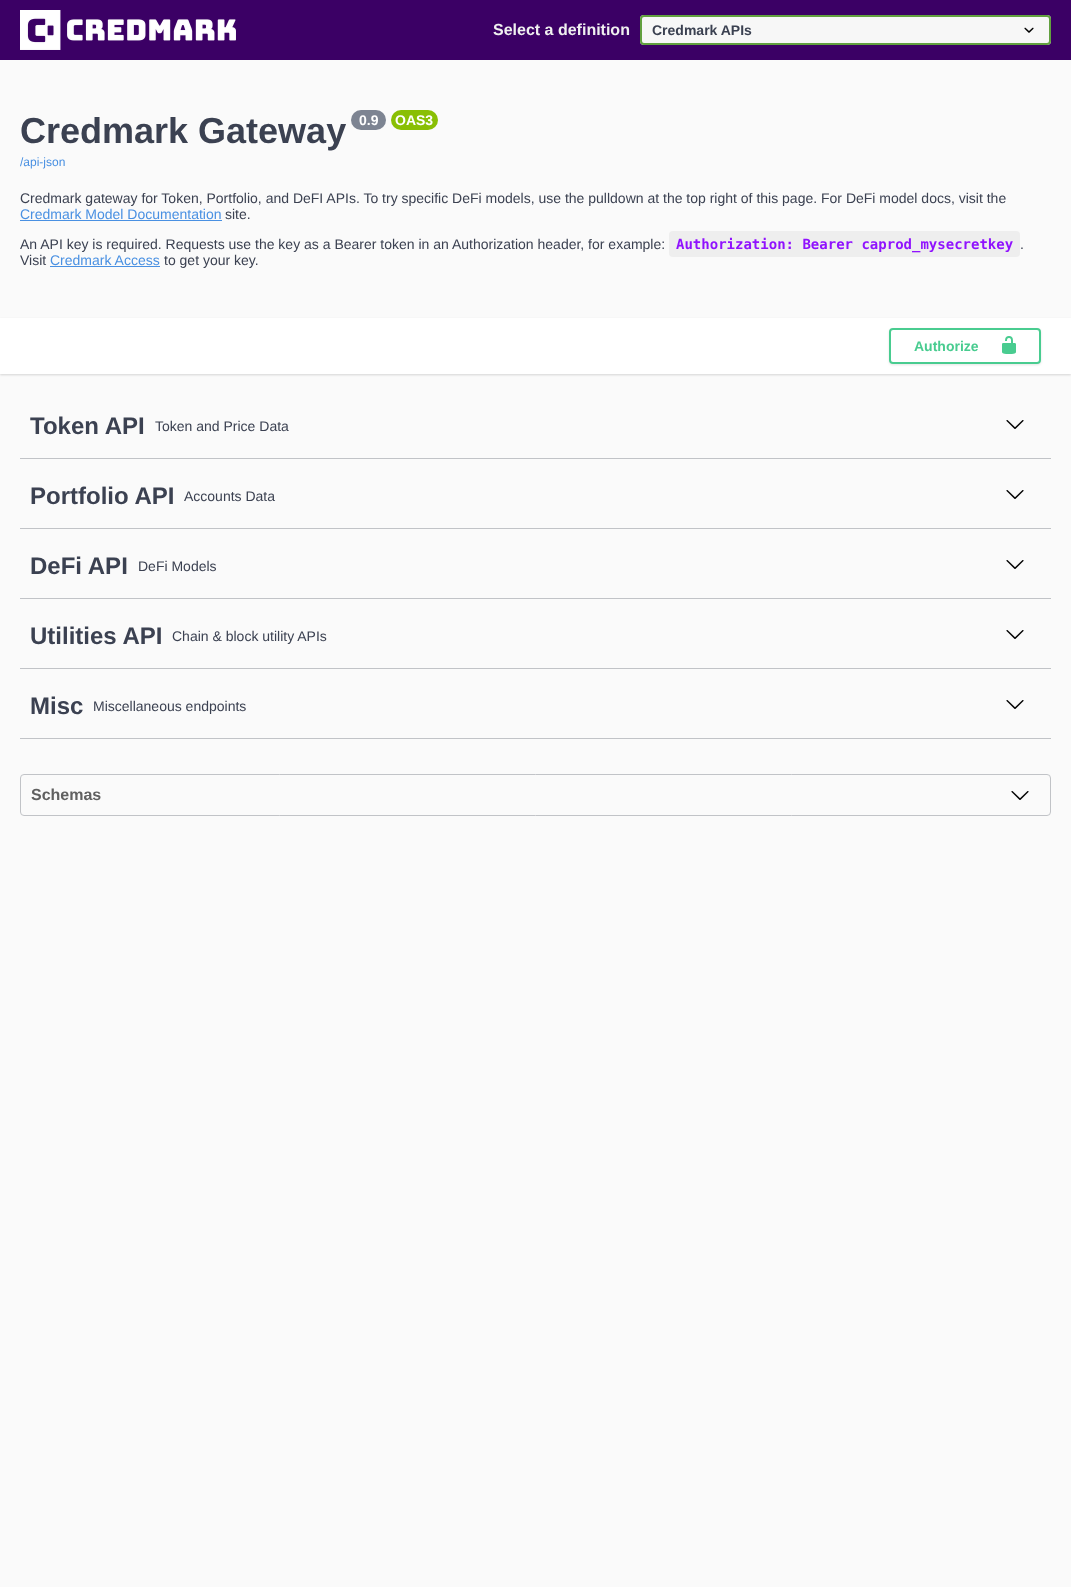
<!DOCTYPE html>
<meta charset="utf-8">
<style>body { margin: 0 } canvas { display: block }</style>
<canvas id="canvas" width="1071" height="1587"></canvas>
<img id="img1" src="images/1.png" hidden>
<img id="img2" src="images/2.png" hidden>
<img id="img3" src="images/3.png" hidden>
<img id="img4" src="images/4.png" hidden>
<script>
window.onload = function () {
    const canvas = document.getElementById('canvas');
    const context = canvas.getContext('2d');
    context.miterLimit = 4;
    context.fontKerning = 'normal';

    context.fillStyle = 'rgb(250, 250, 250)';
    context.fillRect(0, 0, 1071, 1587);
    context.fillStyle = 'rgb(59, 0, 101)';
    context.fillRect(0, 0, 1071, 60);
    context.drawImage(document.getElementById('img1'), 20, 10, 216, 40);
    context.fillStyle = 'rgb(247, 247, 247)';
    context.beginPath();
    context.roundRect(640, 15, 411, 30, 4);
    context.fill();
    context.drawImage(document.getElementById('img2'), 1024, 27, 10, 6);
    context.beginPath();
    context.roundRect(641, 16, 409, 28, 3);
    context.strokeStyle = 'rgb(98, 160, 63)';
    context.lineWidth = 2;
    context.stroke();
    context.fillStyle = 'rgb(125, 132, 146)';
    context.beginPath();
    context.roundRect(351, 110, 35, 20, 10);
    context.fill();
    context.fillStyle = 'rgb(137, 191, 4)';
    context.beginPath();
    context.roundRect(391, 110, 47, 20, 10);
    context.fill();
    context.fillStyle = 'rgb(73, 144, 226)';
    context.fillRect(20, 220, 202, 1);
    context.fillStyle = 'rgb(238, 238, 238)';
    context.beginPath();
    context.roundRect(669, 231, 351, 26, 4);
    context.fill();
    context.fillStyle = 'rgb(73, 144, 226)';
    context.fillRect(50, 266, 110, 1);
    context.fillStyle = 'rgba(0, 0, 0, 0.15)';
    context.filter = 'blur(1px)';
    context.beginPath();
    context.rect(0, 319, 1071, 56);
    context.fill();
    context.filter = 'none';
    context.fillStyle = 'rgb(255, 255, 255)';
    context.fillRect(0, 318, 1071, 56);
    context.save();
    context.beginPath();
    context.moveTo(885, 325);
    context.lineTo(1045, 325);
    context.lineTo(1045, 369);
    context.lineTo(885, 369);
    context.closePath();
    context.moveTo(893, 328);
    context.lineTo(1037, 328);
    context.bezierCurveTo(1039, 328, 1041, 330, 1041, 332);
    context.lineTo(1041, 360);
    context.bezierCurveTo(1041, 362, 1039, 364, 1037, 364);
    context.lineTo(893, 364);
    context.bezierCurveTo(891, 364, 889, 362, 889, 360);
    context.lineTo(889, 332);
    context.bezierCurveTo(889, 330, 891, 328, 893, 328);
    context.closePath();
    context.clip('evenodd');
    context.fillStyle = 'rgba(0, 0, 0, 0.1)';
    context.filter = 'blur(1px)';
    context.beginPath();
    context.roundRect(889, 329, 152, 36, 4);
    context.fill();
    context.filter = 'none';
    context.restore();
    context.beginPath();
    context.roundRect(890, 329, 150, 34, 3);
    context.strokeStyle = 'rgb(73, 204, 144)';
    context.stroke();
    context.drawImage(document.getElementById('img3'), 1002, 336, 14, 18);
    context.fillStyle = 'rgb(193, 195, 199)';
    context.fillRect(20, 458, 1031, 1);
    context.drawImage(document.getElementById('img4'), 1006, 420, 18, 9);
    context.fillRect(20, 528, 1031, 1);
    context.drawImage(document.getElementById('img4'), 1006, 490, 18, 9);
    context.fillRect(20, 598, 1031, 1);
    context.drawImage(document.getElementById('img4'), 1006, 560, 18, 9);
    context.fillRect(20, 668, 1031, 1);
    context.drawImage(document.getElementById('img4'), 1006, 630, 18, 9);
    context.fillRect(20, 738, 1031, 1);
    context.drawImage(document.getElementById('img4'), 1006, 700, 18, 9);
    context.beginPath();
    context.roundRect(20.5, 774.5, 1030, 41, 3.5);
    context.strokeStyle = 'rgb(193, 195, 199)';
    context.lineWidth = 1;
    context.stroke();
    context.drawImage(document.getElementById('img4'), 1011, 791, 18, 9);
    context.font = 'bold 16px Liberation Sans';
    context.fillStyle = 'rgb(240, 240, 240)';
    context.fillText('Select a definition', 493, 35);
    context.font = 'bold 14px Liberation Sans';
    context.fillStyle = 'rgb(59, 65, 81)';
    context.fillText('Credmark APIs', 652, 35);
    context.font = 'bold 36px Liberation Sans';
    context.fillText('Credmark Gateway', 20, 143);
    context.font = 'bold 14px Liberation Sans';
    context.fillStyle = 'rgb(255, 255, 255)';
    context.fillText('0.9', 359, 125);
    context.fillText('OAS3', 395, 125);
    context.font = '12px Liberation Sans';
    context.fillStyle = 'rgb(73, 144, 226)';
    context.fillText('/api-json', 20, 166);
    context.font = '14px Liberation Sans';
    context.fillStyle = 'rgb(59, 65, 81)';
    context.fillText('Credmark gateway for Token, Portfolio, and DeFI APIs. To try specific DeFi models, use the pulldown at the top right of this page. For DeFi model docs, visit the', 20, 203);
    context.fillStyle = 'rgb(73, 144, 226)';
    context.fillText('Credmark Model Documentation', 20, 219);
    context.fillStyle = 'rgb(59, 65, 81)';
    context.fillText('site.', 225, 219);
    context.fillText('An API key is required. Requests use the key as a Bearer token in an Authorization header, for example:', 20, 249);
    context.font = 'bold 14px DejaVu Sans Mono';
    context.fillStyle = 'rgb(144, 18, 254)';
    context.fillText('Authorization: Bearer caprod_mysecretkey', 676, 249);
    context.font = '14px Liberation Sans';
    context.fillStyle = 'rgb(59, 65, 81)';
    context.fillText('.', 1020, 249);
    context.fillText('Visit', 20, 265);
    context.fillStyle = 'rgb(73, 144, 226)';
    context.fillText('Credmark Access', 50, 265);
    context.fillStyle = 'rgb(59, 65, 81)';
    context.fillText('to get your key.', 164, 265);
    context.font = 'bold 14px Liberation Sans';
    context.fillStyle = 'rgb(73, 204, 144)';
    context.fillText('Authorize', 914, 351);
    context.font = 'bold 24px Liberation Sans';
    context.fillStyle = 'rgb(59, 65, 81)';
    context.fillText('Token API', 30, 434);
    context.font = '14px Liberation Sans';
    context.fillText('Token and Price Data', 155, 431);
    context.font = 'bold 24px Liberation Sans';
    context.fillText('Portfolio API', 30, 504);
    context.font = '14px Liberation Sans';
    context.fillText('Accounts Data', 184, 501);
    context.font = 'bold 24px Liberation Sans';
    context.fillText('DeFi API', 30, 574);
    context.font = '14px Liberation Sans';
    context.fillText('DeFi Models', 138, 571);
    context.font = 'bold 24px Liberation Sans';
    context.fillText('Utilities API', 30, 644);
    context.font = '14px Liberation Sans';
    context.fillText('Chain & block utility APIs', 172, 641);
    context.font = 'bold 24px Liberation Sans';
    context.fillText('Misc', 30, 714);
    context.font = '14px Liberation Sans';
    context.fillText('Miscellaneous endpoints', 93, 711);
    context.font = 'bold 16px Liberation Sans';
    context.fillStyle = 'rgb(96, 96, 96)';
    context.fillText('Schemas', 31, 800);
};
</script>
